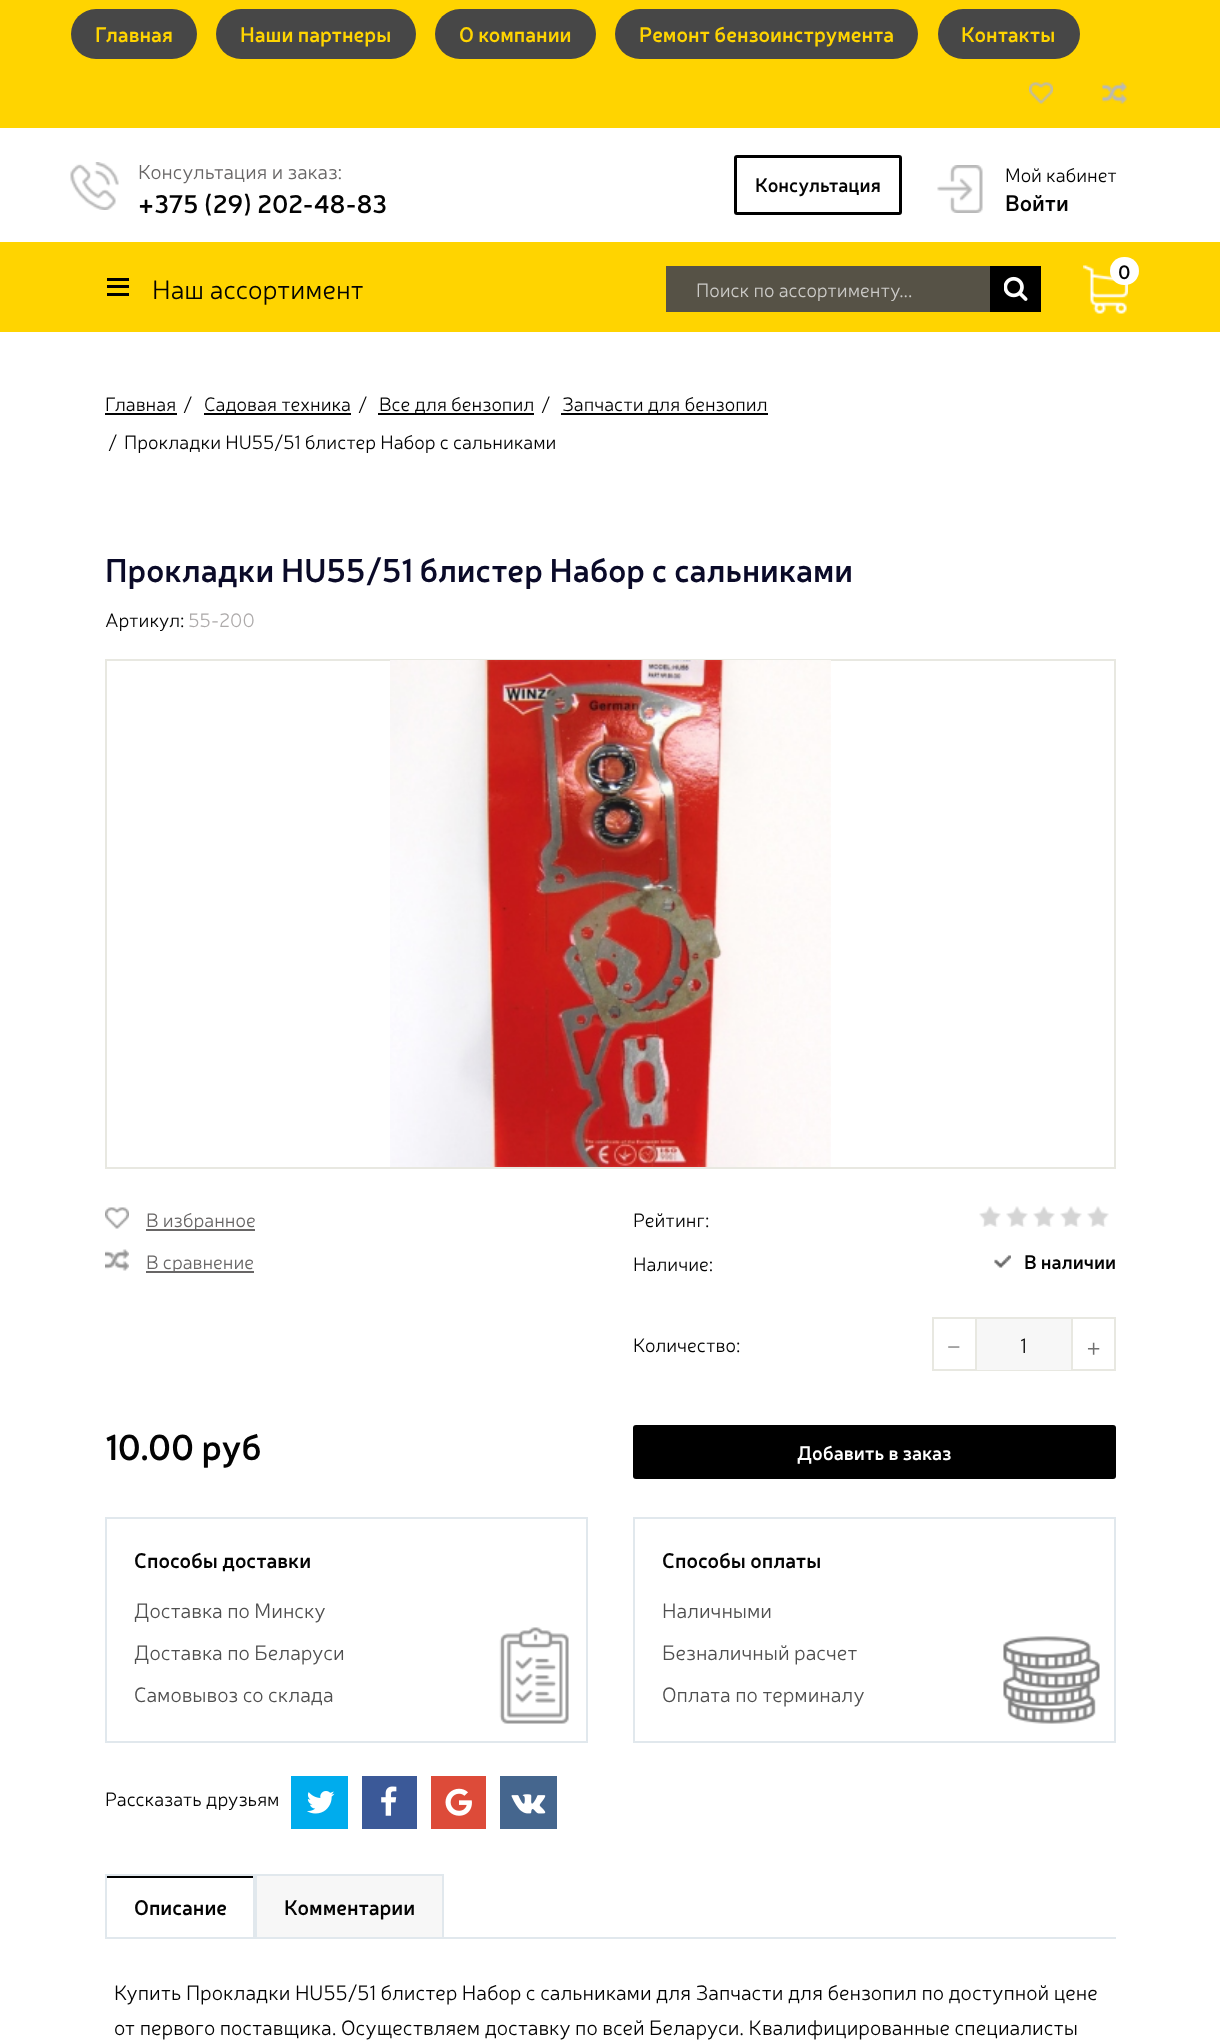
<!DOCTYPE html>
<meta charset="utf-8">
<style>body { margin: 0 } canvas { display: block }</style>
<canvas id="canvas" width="1220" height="2044"></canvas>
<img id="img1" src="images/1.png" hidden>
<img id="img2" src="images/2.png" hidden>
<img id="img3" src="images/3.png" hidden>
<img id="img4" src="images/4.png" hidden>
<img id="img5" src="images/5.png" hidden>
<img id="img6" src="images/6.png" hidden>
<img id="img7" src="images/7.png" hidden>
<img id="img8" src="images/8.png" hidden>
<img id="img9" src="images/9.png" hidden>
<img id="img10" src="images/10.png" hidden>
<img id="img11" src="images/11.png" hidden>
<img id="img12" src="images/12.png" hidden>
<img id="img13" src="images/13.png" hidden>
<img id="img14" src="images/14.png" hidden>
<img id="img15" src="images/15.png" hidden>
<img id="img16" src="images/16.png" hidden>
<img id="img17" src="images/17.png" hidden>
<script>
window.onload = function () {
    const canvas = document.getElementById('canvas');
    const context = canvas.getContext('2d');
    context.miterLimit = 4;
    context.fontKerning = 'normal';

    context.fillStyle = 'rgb(255, 255, 255)';
    context.fillRect(0, 0, 1220, 2044);
    context.fillStyle = 'rgb(255, 212, 0)';
    context.fillRect(0, 0, 1220, 128);
    context.fillStyle = 'rgb(71, 71, 71)';
    context.beginPath();
    context.roundRect(71, 9, 126, 50, 25);
    context.fill();
    context.beginPath();
    context.roundRect(216, 9, 200, 50, 25);
    context.fill();
    context.beginPath();
    context.roundRect(435, 9, 161, 50, 25);
    context.fill();
    context.beginPath();
    context.roundRect(615, 9, 303, 50, 25);
    context.fill();
    context.beginPath();
    context.roundRect(938, 9, 142, 50, 25);
    context.fill();
    context.drawImage(document.getElementById('img1'), 1029, 82, 24, 22);
    context.drawImage(document.getElementById('img2'), 1102, 82, 25, 22);
    context.drawImage(document.getElementById('img3'), 70, 162, 49, 48);
    context.beginPath();
    context.roundRect(735.5, 156.5, 165, 57, 1.5);
    context.strokeStyle = 'rgb(0, 0, 0)';
    context.lineWidth = 3;
    context.stroke();
    context.drawImage(document.getElementById('img4'), 937, 165, 46, 48);
    context.fillStyle = 'rgb(255, 212, 0)';
    context.fillRect(0, 242, 1220, 90);
    context.drawImage(document.getElementById('img5'), 1083, 265, 45, 49);
    context.fillStyle = 'rgb(255, 255, 255)';
    context.beginPath();
    context.roundRect(1110, 257, 29, 28, 14);
    context.fill();
    context.fillStyle = 'rgb(0, 0, 0)';
    context.fillRect(107, 278, 22, 3);
    context.fillRect(107, 285, 22, 3);
    context.fillRect(107, 293, 22, 3);
    context.fillStyle = 'rgb(86, 82, 70)';
    context.fillRect(666, 266, 324, 46);
    context.fillStyle = 'rgb(0, 0, 0)';
    context.fillRect(990, 266, 51, 46);
    context.drawImage(document.getElementById('img6'), 1004, 276, 24, 25);
    context.fillStyle = 'rgb(3, 3, 3)';
    context.fillRect(105, 413, 72, 2);
    context.fillRect(204, 413, 147, 2);
    context.fillRect(378, 413, 156, 2);
    context.fillRect(561, 413, 207, 2);
    context.strokeStyle = 'rgb(232, 232, 225)';
    context.lineWidth = 2;
    context.strokeRect(106, 660, 1009, 508);
    context.drawImage(document.getElementById('img7'), 390, 660, 441, 507);
    context.drawImage(document.getElementById('img8'), 105, 1207, 24, 22);
    context.fillStyle = 'rgb(104, 102, 102)';
    context.fillRect(146, 1229, 109, 2);
    context.drawImage(document.getElementById('img9'), 105, 1249, 24, 22);
    context.fillRect(146, 1271, 108, 2);
    context.drawImage(document.getElementById('img10'), 979, 1206, 130, 21);
    context.drawImage(document.getElementById('img11'), 994, 1255, 17, 13);
    context.strokeRect(933, 1318, 182, 52);
    context.fillStyle = 'rgb(247, 247, 247)';
    context.fillRect(977, 1319, 94, 51);
    context.fillStyle = 'rgb(232, 232, 225)';
    context.fillRect(1071, 1319, 2, 51);
    context.fillRect(975, 1319, 2, 51);
    context.fillStyle = 'rgb(0, 0, 0)';
    context.beginPath();
    context.roundRect(633, 1425, 483, 54, 3);
    context.fill();
    context.strokeStyle = 'rgb(225, 232, 237)';
    context.strokeRect(106, 1518, 481, 224);
    context.drawImage(document.getElementById('img12'), 499, 1627, 70, 97);
    context.strokeRect(634, 1518, 481, 224);
    context.drawImage(document.getElementById('img13'), 1003, 1636, 97, 88);
    context.fillStyle = 'rgb(0, 172, 237)';
    context.fillRect(291, 1776, 57, 53);
    context.drawImage(document.getElementById('img14'), 307, 1791, 28, 23);
    context.fillStyle = 'rgb(59, 89, 152)';
    context.fillRect(362, 1776, 55, 53);
    context.drawImage(document.getElementById('img15'), 381, 1786, 16, 30);
    context.fillStyle = 'rgb(221, 75, 57)';
    context.fillRect(431, 1776, 55, 53);
    context.drawImage(document.getElementById('img16'), 445, 1788, 27, 28);
    context.fillStyle = 'rgb(69, 102, 142)';
    context.fillRect(500, 1776, 57, 53);
    context.drawImage(document.getElementById('img17'), 511, 1794, 35, 20);
    context.fillStyle = 'rgb(0, 0, 0)';
    context.fillRect(107, 1876, 147, 2);
    context.save();
    context.beginPath();
    context.rect(105, 1874, 1011, 64);
    context.clip();
    context.strokeRect(106, 1875, 148, 65);
    context.restore();
    context.fillStyle = 'rgb(247, 247, 247)';
    context.fillRect(257, 1876, 185, 61);
    context.save();
    context.beginPath();
    context.rect(105, 1874, 1011, 64);
    context.clip();
    context.strokeRect(256, 1875, 187, 65);
    context.restore();
    context.fillStyle = 'rgb(225, 232, 237)';
    context.fillRect(105, 1937, 1011, 2);
    context.font = '600 21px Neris';
    context.fillStyle = 'rgb(255, 212, 0)';
    context.fillText('Главная', 95, 42);
    context.fillText('Наши партнеры', 240, 42);
    context.fillText('О компании', 459, 42);
    context.fillText('Ремонт бензоинструмента', 639, 42);
    context.fillText('Контакты', 961, 42);
    context.font = '300 20.5px Neris';
    context.fillStyle = 'rgb(104, 102, 102)';
    context.fillText('Консультация и заказ:', 138, 179);
    context.font = '600 25.5px Neris';
    context.fillStyle = 'rgb(3, 3, 3)';
    context.fillText('+375 (29) 202-48-83', 138, 213);
    context.font = '600 19.5px Neris';
    context.fillText('Консультация', 755, 192);
    context.font = '300 19.5px Neris';
    context.fillText('Мой кабинет', 1005, 182);
    context.font = '600 22.5px Neris';
    context.fillText('Войти', 1005, 211);
    context.font = '600 19.5px Neris';
    context.fillText('0', 1118, 279);
    context.font = '300 27px Neris';
    context.fillText('Наш ассортимент', 152, 299);
    context.font = '300 19.5px Neris';
    context.fillStyle = 'rgb(204, 203, 200)';
    context.fillText('Поиск по ассортименту...', 696, 297);
    context.fillStyle = 'rgb(3, 3, 3)';
    context.fillText('Главная', 105, 411);
    context.fillText('/', 183, 411);
    context.fillText('Садовая техника', 204, 411);
    context.fillText('/', 358, 411);
    context.fillText('Все для бензопил', 379, 411);
    context.fillText('/', 541, 411);
    context.fillText('Запчасти для бензопил', 562, 411);
    context.fillText('/', 108, 449);
    context.fillText('Прокладки HU55/51 блистер Набор с сальниками', 124, 449);
    context.font = '600 33px Neris';
    context.fillStyle = 'rgb(10, 10, 40)';
    context.fillText('Прокладки HU55/51 блистер Набор с сальниками', 105, 582);
    context.font = '300 19.5px Neris';
    context.fillStyle = 'rgb(3, 3, 3)';
    context.fillText('Артикул:', 105, 627);
    context.fillStyle = 'rgb(173, 170, 170)';
    context.fillText('55-200', 188, 627);
    context.fillStyle = 'rgb(104, 102, 102)';
    context.fillText('В избранное', 146, 1227);
    context.fillText('В сравнение', 146, 1269);
    context.fillStyle = 'rgb(3, 3, 3)';
    context.fillText('Рейтинг:', 633, 1227);
    context.fillText('Наличие:', 633, 1271);
    context.font = '600 19.5px Neris';
    context.fillText('В наличии', 1024, 1269);
    context.font = '300 19.5px Neris';
    context.fillText('Количество:', 633, 1352);
    context.font = '24px Liberation Serif';
    context.fillStyle = 'rgb(112, 112, 112)';
    context.fillText('−', 947, 1355);
    context.font = '300 21px Neris';
    context.fillStyle = 'rgb(3, 3, 3)';
    context.fillText('1', 1020, 1353);
    context.font = '300 24px Neris';
    context.fillStyle = 'rgb(112, 112, 112)';
    context.fillText('+', 1086, 1355);
    context.font = '600 36px Neris';
    context.fillStyle = 'rgb(3, 3, 3)';
    context.fillText('10.00 руб', 105, 1460);
    context.font = '600 19.5px Neris';
    context.fillStyle = 'rgb(255, 255, 255)';
    context.fillText('Добавить в заказ', 797, 1460);
    context.font = '600 21px Neris';
    context.fillStyle = 'rgb(3, 3, 3)';
    context.fillText('Способы доставки', 134, 1568);
    context.font = '300 21px Neris';
    context.fillStyle = 'rgb(79, 79, 79)';
    context.fillText('Доставка по Минску', 134, 1618);
    context.fillText('Доставка по Беларуси', 134, 1660);
    context.fillText('Самовывоз со склада', 134, 1702);
    context.font = '600 21px Neris';
    context.fillStyle = 'rgb(3, 3, 3)';
    context.fillText('Способы оплаты', 662, 1568);
    context.font = '300 21px Neris';
    context.fillStyle = 'rgb(79, 79, 79)';
    context.fillText('Наличными', 662, 1618);
    context.fillText('Безналичный расчет', 662, 1660);
    context.fillText('Оплата по терминалу', 662, 1702);
    context.font = '300 19.5px Neris';
    context.fillStyle = 'rgb(3, 3, 3)';
    context.fillText('Рассказать друзьям', 105, 1806);
    context.font = '600 21px Neris';
    context.fillText('Описание', 134, 1915);
    context.fillText('Комментарии', 284, 1915);
    context.font = '300 21px Neris';
    context.fillText('Купить Прокладки HU55/51 блистер Набор с сальниками для Запчасти для бензопил по доступной цене', 114, 2000);
    context.fillText('от первого поставщика. Осуществляем доставку по всей Беларуси. Квалифицированные специалисты', 114, 2035);
};
</script>
